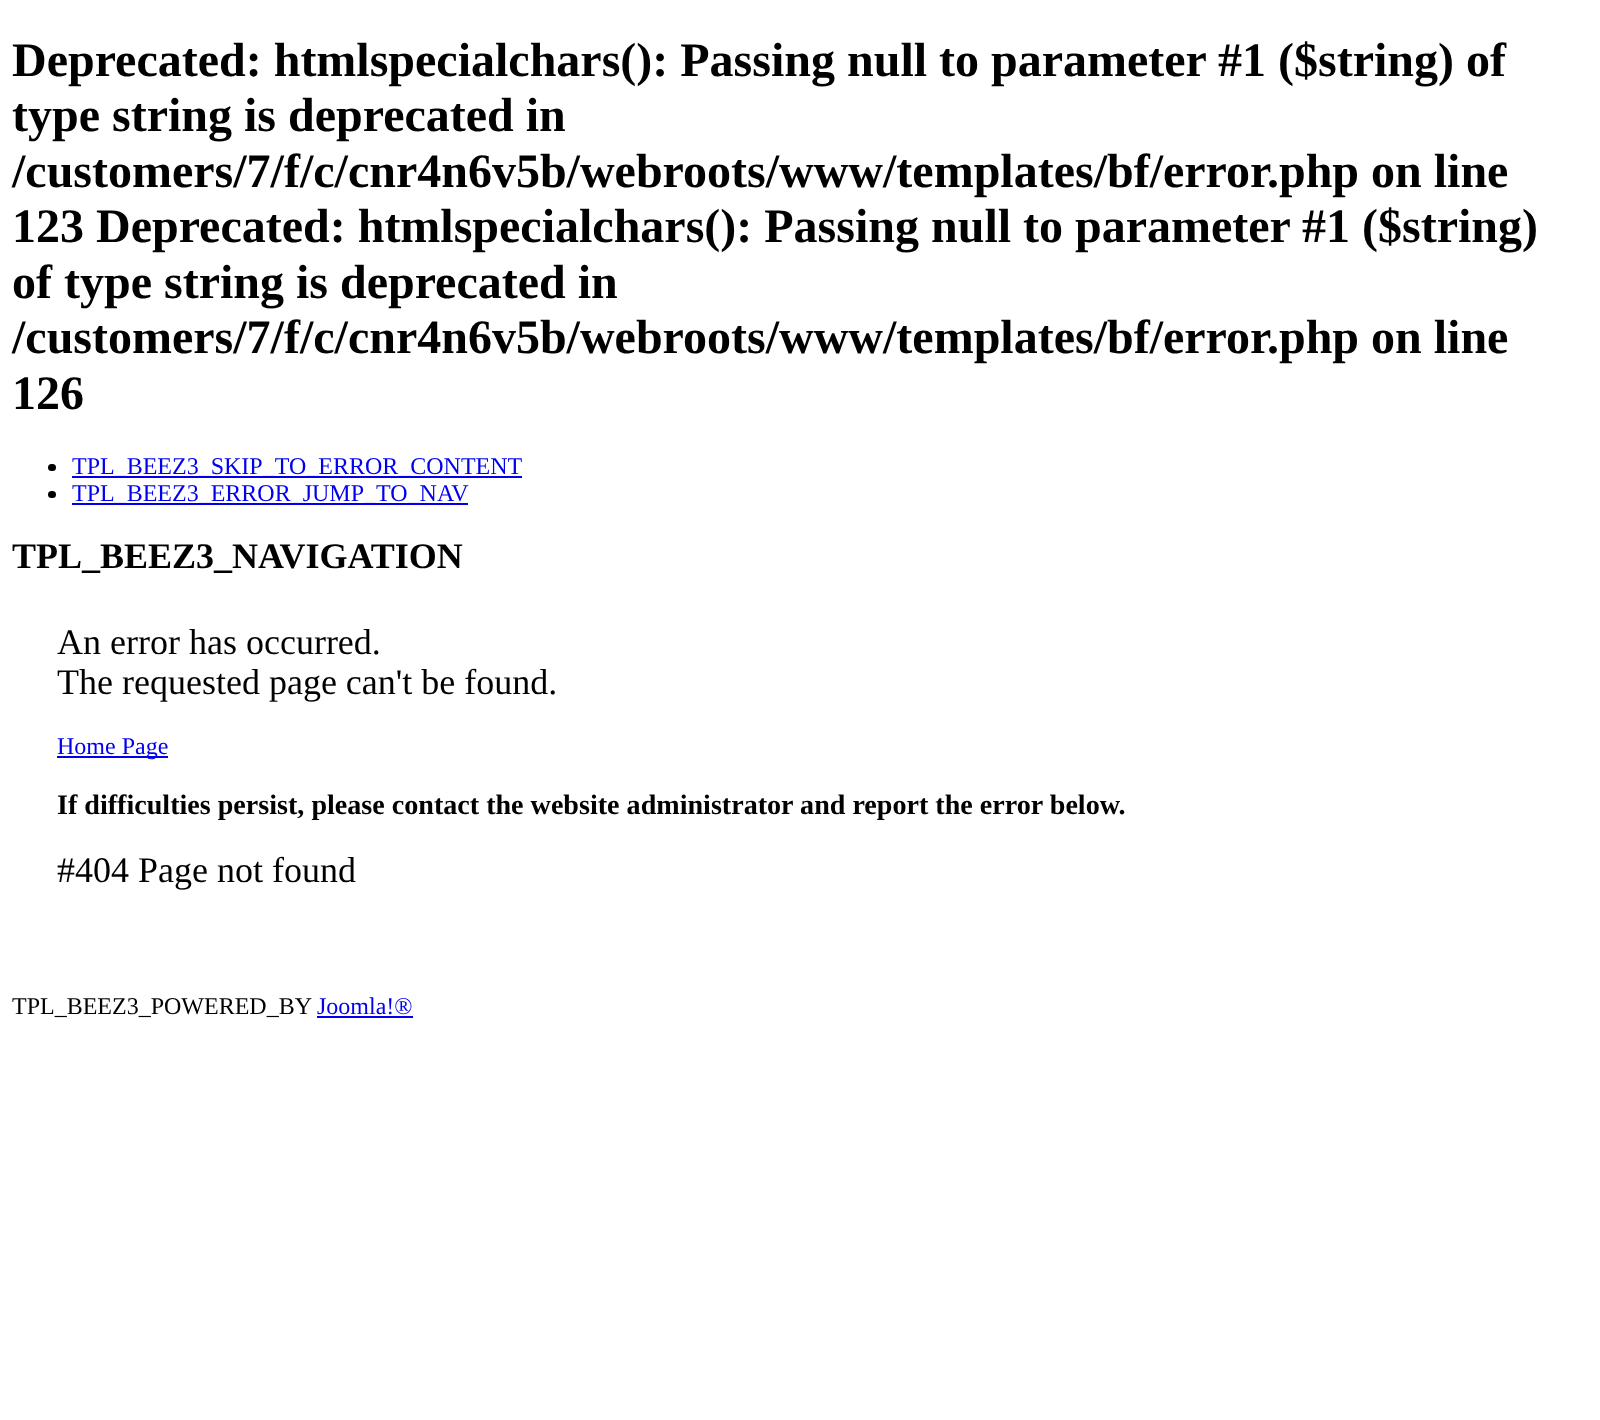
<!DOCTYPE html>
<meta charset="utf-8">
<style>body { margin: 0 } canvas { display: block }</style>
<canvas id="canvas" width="1600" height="1420"></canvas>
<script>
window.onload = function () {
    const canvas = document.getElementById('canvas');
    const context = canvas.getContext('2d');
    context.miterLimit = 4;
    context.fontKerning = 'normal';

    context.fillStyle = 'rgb(255, 255, 255)';
    context.fillRect(0, 0, 1600, 1420);
    context.fillStyle = 'rgb(0, 0, 0)';
    context.beginPath();
    context.roundRect(48, 464, 8, 7, 3.5);
    context.fill();
    context.fillStyle = 'rgb(0, 0, 238)';
    context.fillRect(72, 476, 450, 2);
    context.fillStyle = 'rgb(0, 0, 0)';
    context.beginPath();
    context.roundRect(48, 491, 8, 7, 3.5);
    context.fill();
    context.fillStyle = 'rgb(0, 0, 238)';
    context.fillRect(72, 503, 396, 2);
    context.fillRect(57, 756, 111, 2);
    context.fillRect(317, 1016, 96, 2);
    context.font = 'bold 48px Liberation Serif';
    context.fillStyle = 'rgb(0, 0, 0)';
    context.fillText('Deprecated: htmlspecialchars(): Passing null to parameter #1 ($string) of', 12, 76);
    context.fillText('type string is deprecated in', 12, 131);
    context.fillText('/customers/7/f/c/cnr4n6v5b/webroots/www/templates/bf/error.php on line', 12, 187);
    context.fillText('123 Deprecated: htmlspecialchars(): Passing null to parameter #1 ($string)', 12, 242);
    context.fillText('of type string is deprecated in', 12, 298);
    context.fillText('/customers/7/f/c/cnr4n6v5b/webroots/www/templates/bf/error.php on line', 12, 353);
    context.fillText('126', 12, 409);
    context.font = '24px Liberation Serif';
    context.fillStyle = 'rgb(0, 0, 238)';
    context.fillText('TPL_BEEZ3_SKIP_TO_ERROR_CONTENT', 72, 474);
    context.fillText('TPL_BEEZ3_ERROR_JUMP_TO_NAV', 72, 501);
    context.font = 'bold 36px Liberation Serif';
    context.fillStyle = 'rgb(0, 0, 0)';
    context.fillText('TPL_BEEZ3_NAVIGATION', 12, 568);
    context.font = '36px Liberation Serif';
    context.fillText('An error has occurred.', 57, 654);
    context.fillText('The requested page can\'t be found.', 57, 694);
    context.font = '24px Liberation Serif';
    context.fillStyle = 'rgb(0, 0, 238)';
    context.fillText('Home Page', 57, 754);
    context.font = 'bold 28.1px Liberation Serif';
    context.fillStyle = 'rgb(0, 0, 0)';
    context.fillText('If difficulties persist, please contact the website administrator and report the error below.', 57, 814);
    context.font = '36px Liberation Serif';
    context.fillText('#404 Page not found', 57, 882);
    context.font = '24px Liberation Serif';
    context.fillText('TPL_BEEZ3_POWERED_BY', 12, 1014);
    context.fillStyle = 'rgb(0, 0, 238)';
    context.fillText('Joomla!®', 317, 1014);
};
</script>
